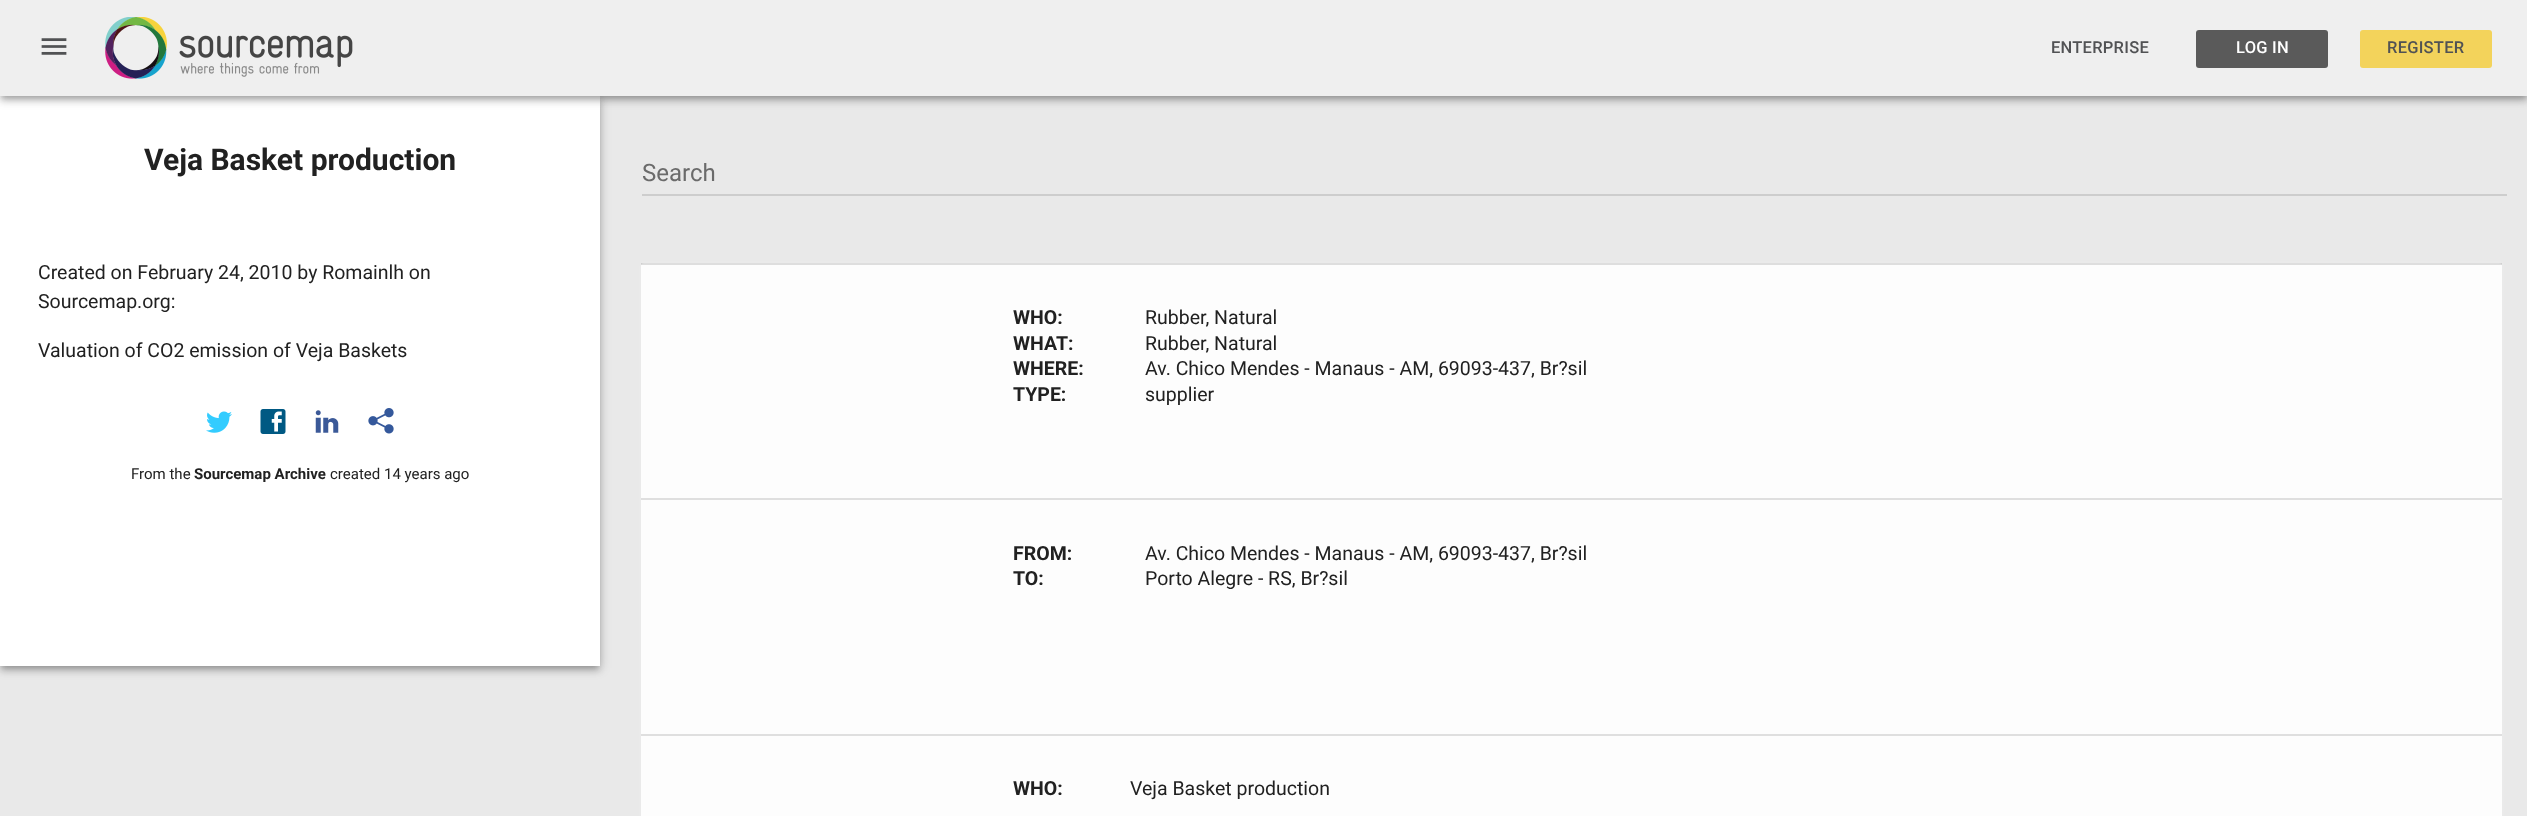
<!DOCTYPE html>
<meta charset="utf-8">
<style>body { margin: 0 } canvas { display: block }</style>
<canvas id="canvas" width="2527" height="816"></canvas>
<img id="img1" src="images/1.png" hidden>
<img id="img2" src="images/2.png" hidden>
<img id="img3" src="images/3.png" hidden>
<img id="img4" src="images/4.png" hidden>
<img id="img5" src="images/5.png" hidden>
<img id="img6" src="images/6.png" hidden>
<script>
window.onload = function () {
    const canvas = document.getElementById('canvas');
    const context = canvas.getContext('2d');
    context.miterLimit = 4;
    context.fontKerning = 'normal';

    context.fillStyle = 'rgb(233, 233, 233)';
    context.fillRect(0, 0, 2527, 816);
    context.fillStyle = 'rgba(0, 0, 0, 0.12)';
    context.filter = 'blur(2px)';
    context.beginPath();
    context.rect(3, 104, 594, 564);
    context.fill();
    context.filter = 'none';
    context.fillStyle = 'rgba(0, 0, 0, 0.14)';
    context.filter = 'blur(3px)';
    context.beginPath();
    context.rect(0, 101, 600, 570);
    context.fill();
    context.filter = 'none';
    context.fillStyle = 'rgba(0, 0, 0, 0.2)';
    context.filter = 'blur(6px)';
    context.beginPath();
    context.rect(0, 98, 600, 570);
    context.fill();
    context.filter = 'none';
    context.fillStyle = 'rgb(255, 255, 255)';
    context.fillRect(0, 96, 600, 570);
    context.fillStyle = 'rgba(0, 0, 0, 0.12)';
    context.filter = 'blur(2px)';
    context.beginPath();
    context.rect(3, 8, 2522, 90);
    context.fill();
    context.filter = 'none';
    context.fillStyle = 'rgba(0, 0, 0, 0.14)';
    context.filter = 'blur(3px)';
    context.beginPath();
    context.rect(0, 5, 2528, 96);
    context.fill();
    context.filter = 'none';
    context.fillStyle = 'rgba(0, 0, 0, 0.2)';
    context.filter = 'blur(6px)';
    context.beginPath();
    context.rect(0, 2, 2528, 96);
    context.fill();
    context.filter = 'none';
    context.fillStyle = 'rgb(239, 239, 239)';
    context.fillRect(0, 0, 2527, 96);
    context.drawImage(document.getElementById('img1'), 41, 38, 26, 17);
    context.drawImage(document.getElementById('img2'), 105, 17, 248, 62);
    context.fillStyle = 'rgb(90, 90, 90)';
    context.beginPath();
    context.roundRect(2196, 30, 132, 38, 3);
    context.fill();
    context.fillStyle = 'rgb(243, 211, 91)';
    context.beginPath();
    context.roundRect(2360, 30, 132, 38, 3);
    context.fill();
    context.drawImage(document.getElementById('img3'), 206, 411, 26, 22);
    context.drawImage(document.getElementById('img4'), 260, 409, 26, 25);
    context.drawImage(document.getElementById('img5'), 315, 410, 24, 23);
    context.drawImage(document.getElementById('img6'), 368, 408, 26, 26);
    context.fillStyle = 'rgb(205, 205, 205)';
    context.fillRect(642, 194, 1865, 2);
    context.fillStyle = 'rgb(253, 253, 253)';
    context.beginPath();
    context.roundRect(640, 262, 1863, 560, 4);
    context.fill();
    context.strokeStyle = 'rgb(234, 234, 234)';
    context.lineWidth = 2;
    context.stroke();
    context.fillStyle = 'rgba(0, 0, 0, 0.12)';
    context.fillRect(641, 263, 1861, 2);
    context.fillStyle = 'rgb(223, 223, 223)';
    context.fillRect(641, 498, 1861, 2);
    context.fillRect(641, 734, 1861, 2);
    context.letterSpacing = '0.25px';
    context.font = '500 16.5px Roboto';
    context.fillStyle = 'rgb(81, 82, 84)';
    context.fillText('ENTERPRISE', 2051, 53);
    context.fillStyle = 'rgb(255, 255, 255)';
    context.fillText('LOG IN', 2236, 53);
    context.fillStyle = 'rgb(81, 82, 84)';
    context.fillText('REGISTER', 2387, 53);
    context.letterSpacing = '0px';
    context.font = 'bold 30px Roboto';
    context.fillStyle = 'rgb(33, 33, 33)';
    context.fillText('Veja Basket production', 144, 170);
    context.font = '19.5px Roboto';
    context.fillText('Created on February 24, 2010 by Romainlh on', 38, 279);
    context.fillText('Sourcemap.org:', 38, 308);
    context.fillText('Valuation of CO2 emission of Veja Baskets', 38, 357);
    context.font = '15px Roboto';
    context.fillText('From the', 131, 479);
    context.font = 'bold 15px Roboto';
    context.fillText('Sourcemap Archive', 194, 479);
    context.font = '15px Roboto';
    context.fillText('created 14 years ago', 330, 479);
    context.font = '24px Roboto';
    context.fillStyle = 'rgb(107, 107, 107)';
    context.fillText('Search', 642, 181);
    context.font = 'bold 19.5px Roboto';
    context.fillStyle = 'rgb(33, 33, 33)';
    context.fillText('WHO:', 1013, 324);
    context.font = '19.5px Roboto';
    context.fillText('Rubber, Natural', 1145, 324);
    context.font = 'bold 19.5px Roboto';
    context.fillText('WHAT:', 1013, 350);
    context.font = '19.5px Roboto';
    context.fillText('Rubber, Natural', 1145, 350);
    context.font = 'bold 19.5px Roboto';
    context.fillText('WHERE:', 1013, 375);
    context.font = '19.5px Roboto';
    context.fillText('Av. Chico Mendes - Manaus - AM, 69093-437, Br?sil', 1145, 375);
    context.font = 'bold 19.5px Roboto';
    context.fillText('TYPE:', 1013, 401);
    context.font = '19.5px Roboto';
    context.fillText('supplier', 1145, 401);
    context.font = 'bold 19.5px Roboto';
    context.fillText('FROM:', 1013, 560);
    context.font = '19.5px Roboto';
    context.fillText('Av. Chico Mendes - Manaus - AM, 69093-437, Br?sil', 1145, 560);
    context.font = 'bold 19.5px Roboto';
    context.fillText('TO:', 1013, 585);
    context.font = '19.5px Roboto';
    context.fillText('Porto Alegre - RS, Br?sil', 1145, 585);
    context.font = 'bold 19.5px Roboto';
    context.fillText('WHO:', 1013, 795);
    context.font = '19.5px Roboto';
    context.fillText('Veja Basket production', 1130, 795);
};
</script>
